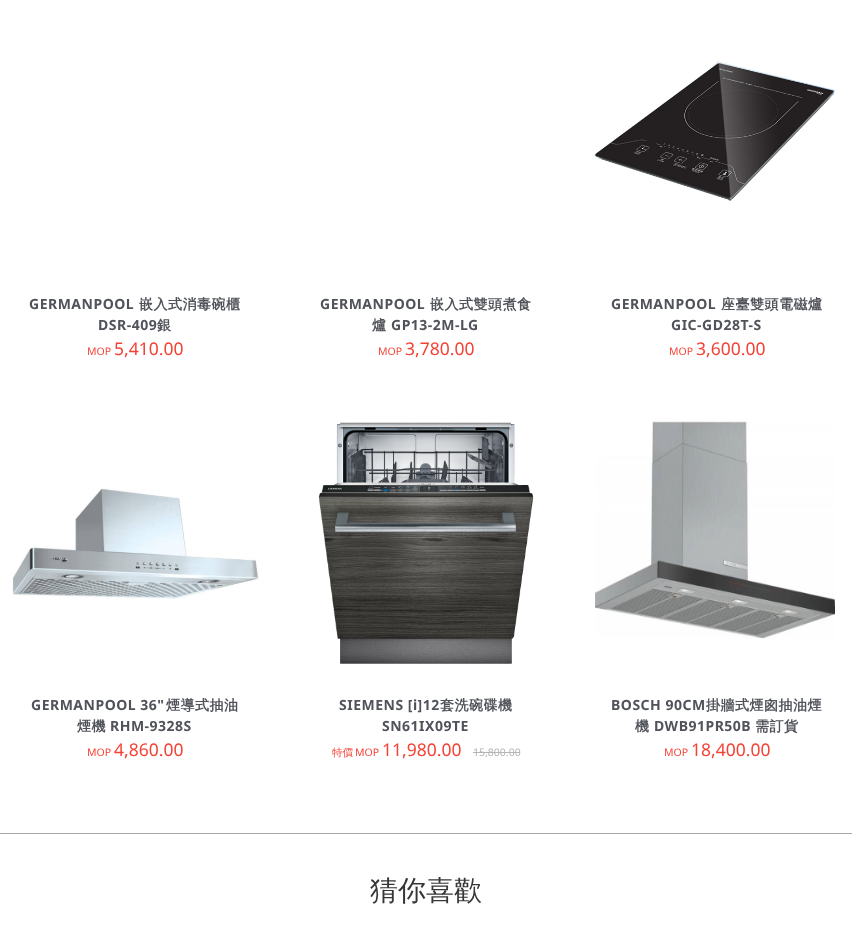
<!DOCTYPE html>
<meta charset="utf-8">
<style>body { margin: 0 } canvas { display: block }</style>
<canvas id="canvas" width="852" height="926"></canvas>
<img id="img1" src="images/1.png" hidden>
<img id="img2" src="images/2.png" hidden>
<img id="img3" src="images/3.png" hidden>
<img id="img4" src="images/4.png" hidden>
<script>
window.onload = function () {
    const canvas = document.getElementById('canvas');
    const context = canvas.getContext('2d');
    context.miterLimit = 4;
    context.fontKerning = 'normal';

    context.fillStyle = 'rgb(255, 255, 255)';
    context.fillRect(0, 0, 852, 926);
    context.drawImage(document.getElementById('img1'), 594, 61, 241, 140);
    context.drawImage(document.getElementById('img2'), 12, 488, 247, 111);
    context.drawImage(document.getElementById('img3'), 318, 422, 216, 242);
    context.fillStyle = 'rgb(181, 181, 181)';
    context.fillRect(473, 752, 47, 1);
    context.drawImage(document.getElementById('img4'), 595, 421, 240, 218);
    context.fillStyle = 'rgb(168, 168, 168)';
    context.fillRect(0, 833, 852, 1);
    context.letterSpacing = '0.5px';
    context.font = 'bold 14px Noto Sans';
    context.fillStyle = 'rgb(81, 83, 90)';
    context.fillText('GERMANPOOL', 29, 309);
    context.font = 'bold 14px WenQuanYi Zen Hei';
    context.fillText('嵌入式消毒碗櫃', 139, 309);
    context.font = 'bold 14px Noto Sans';
    context.fillText('DSR-409', 98, 330);
    context.font = 'bold 14px WenQuanYi Zen Hei';
    context.fillText('銀', 157, 330);
    context.letterSpacing = '0px';
    context.font = '10.5px Noto Sans';
    context.fillStyle = 'rgb(244, 67, 54)';
    context.fillText('MOP', 87, 355);
    context.font = '17.5px Noto Sans';
    context.fillText('5,410.00', 114, 355);
    context.letterSpacing = '0.5px';
    context.font = 'bold 14px Noto Sans';
    context.fillStyle = 'rgb(81, 83, 90)';
    context.fillText('GERMANPOOL', 320, 309);
    context.font = 'bold 14px WenQuanYi Zen Hei';
    context.fillText('嵌入式雙頭煮食', 430, 309);
    context.fillText('爐', 372, 330);
    context.font = 'bold 14px Noto Sans';
    context.fillText('GP13-2M-LG', 391, 330);
    context.letterSpacing = '0px';
    context.font = '10.5px Noto Sans';
    context.fillStyle = 'rgb(244, 67, 54)';
    context.fillText('MOP', 378, 355);
    context.font = '17.5px Noto Sans';
    context.fillText('3,780.00', 405, 355);
    context.letterSpacing = '0.5px';
    context.font = 'bold 14px Noto Sans';
    context.fillStyle = 'rgb(81, 83, 90)';
    context.fillText('GERMANPOOL', 611, 309);
    context.font = 'bold 14px WenQuanYi Zen Hei';
    context.fillText('座臺雙頭電磁爐', 721, 309);
    context.font = 'bold 14px Noto Sans';
    context.fillText('GIC-GD28T-S', 671, 330);
    context.letterSpacing = '0px';
    context.font = '10.5px Noto Sans';
    context.fillStyle = 'rgb(244, 67, 54)';
    context.fillText('MOP', 669, 355);
    context.font = '17.5px Noto Sans';
    context.fillText('3,600.00', 696, 355);
    context.letterSpacing = '0.5px';
    context.font = 'bold 14px Noto Sans';
    context.fillStyle = 'rgb(81, 83, 90)';
    context.fillText('GERMANPOOL 36"', 31, 710);
    context.font = 'bold 14px WenQuanYi Zen Hei';
    context.fillText('煙導式抽油', 166, 710);
    context.fillText('煙機', 77, 731);
    context.font = 'bold 14px Noto Sans';
    context.fillText('RHM-9328S', 110, 731);
    context.letterSpacing = '0px';
    context.font = '10.5px Noto Sans';
    context.fillStyle = 'rgb(244, 67, 54)';
    context.fillText('MOP', 87, 756);
    context.font = '17.5px Noto Sans';
    context.fillText('4,860.00', 114, 756);
    context.letterSpacing = '0.5px';
    context.font = 'bold 14px Noto Sans';
    context.fillStyle = 'rgb(81, 83, 90)';
    context.fillText('SIEMENS [i]12', 339, 710);
    context.font = 'bold 14px WenQuanYi Zen Hei';
    context.fillText('套洗碗碟機', 440, 710);
    context.font = 'bold 14px Noto Sans';
    context.fillText('SN61IX09TE', 382, 731);
    context.letterSpacing = '0px';
    context.font = '500 10.5px WenQuanYi Zen Hei';
    context.fillStyle = 'rgb(244, 67, 54)';
    context.fillText('特價', 332, 756);
    context.font = '10.5px Noto Sans';
    context.fillText('MOP', 355, 756);
    context.font = '17.5px Noto Sans';
    context.fillText('11,980.00', 382, 756);
    context.font = '10.5px Noto Sans';
    context.fillStyle = 'rgb(181, 181, 181)';
    context.fillText('15,800.00', 473, 756);
    context.letterSpacing = '0.5px';
    context.font = 'bold 14px Noto Sans';
    context.fillStyle = 'rgb(81, 83, 90)';
    context.fillText('BOSCH 90CM', 611, 710);
    context.font = 'bold 14px WenQuanYi Zen Hei';
    context.fillText('掛牆式煙囪抽油煙', 706, 710);
    context.fillText('機', 635, 731);
    context.font = 'bold 14px Noto Sans';
    context.fillText('DWB91PR50B', 654, 731);
    context.font = 'bold 14px WenQuanYi Zen Hei';
    context.fillText('需訂貨', 755, 731);
    context.letterSpacing = '0px';
    context.font = '10.5px Noto Sans';
    context.fillStyle = 'rgb(244, 67, 54)';
    context.fillText('MOP', 664, 756);
    context.font = '17.5px Noto Sans';
    context.fillText('18,400.00', 691, 756);
    context.font = '500 28px WenQuanYi Zen Hei';
    context.fillStyle = 'rgb(54, 54, 54)';
    context.fillText('猜你喜歡', 370, 900);
};
</script>
